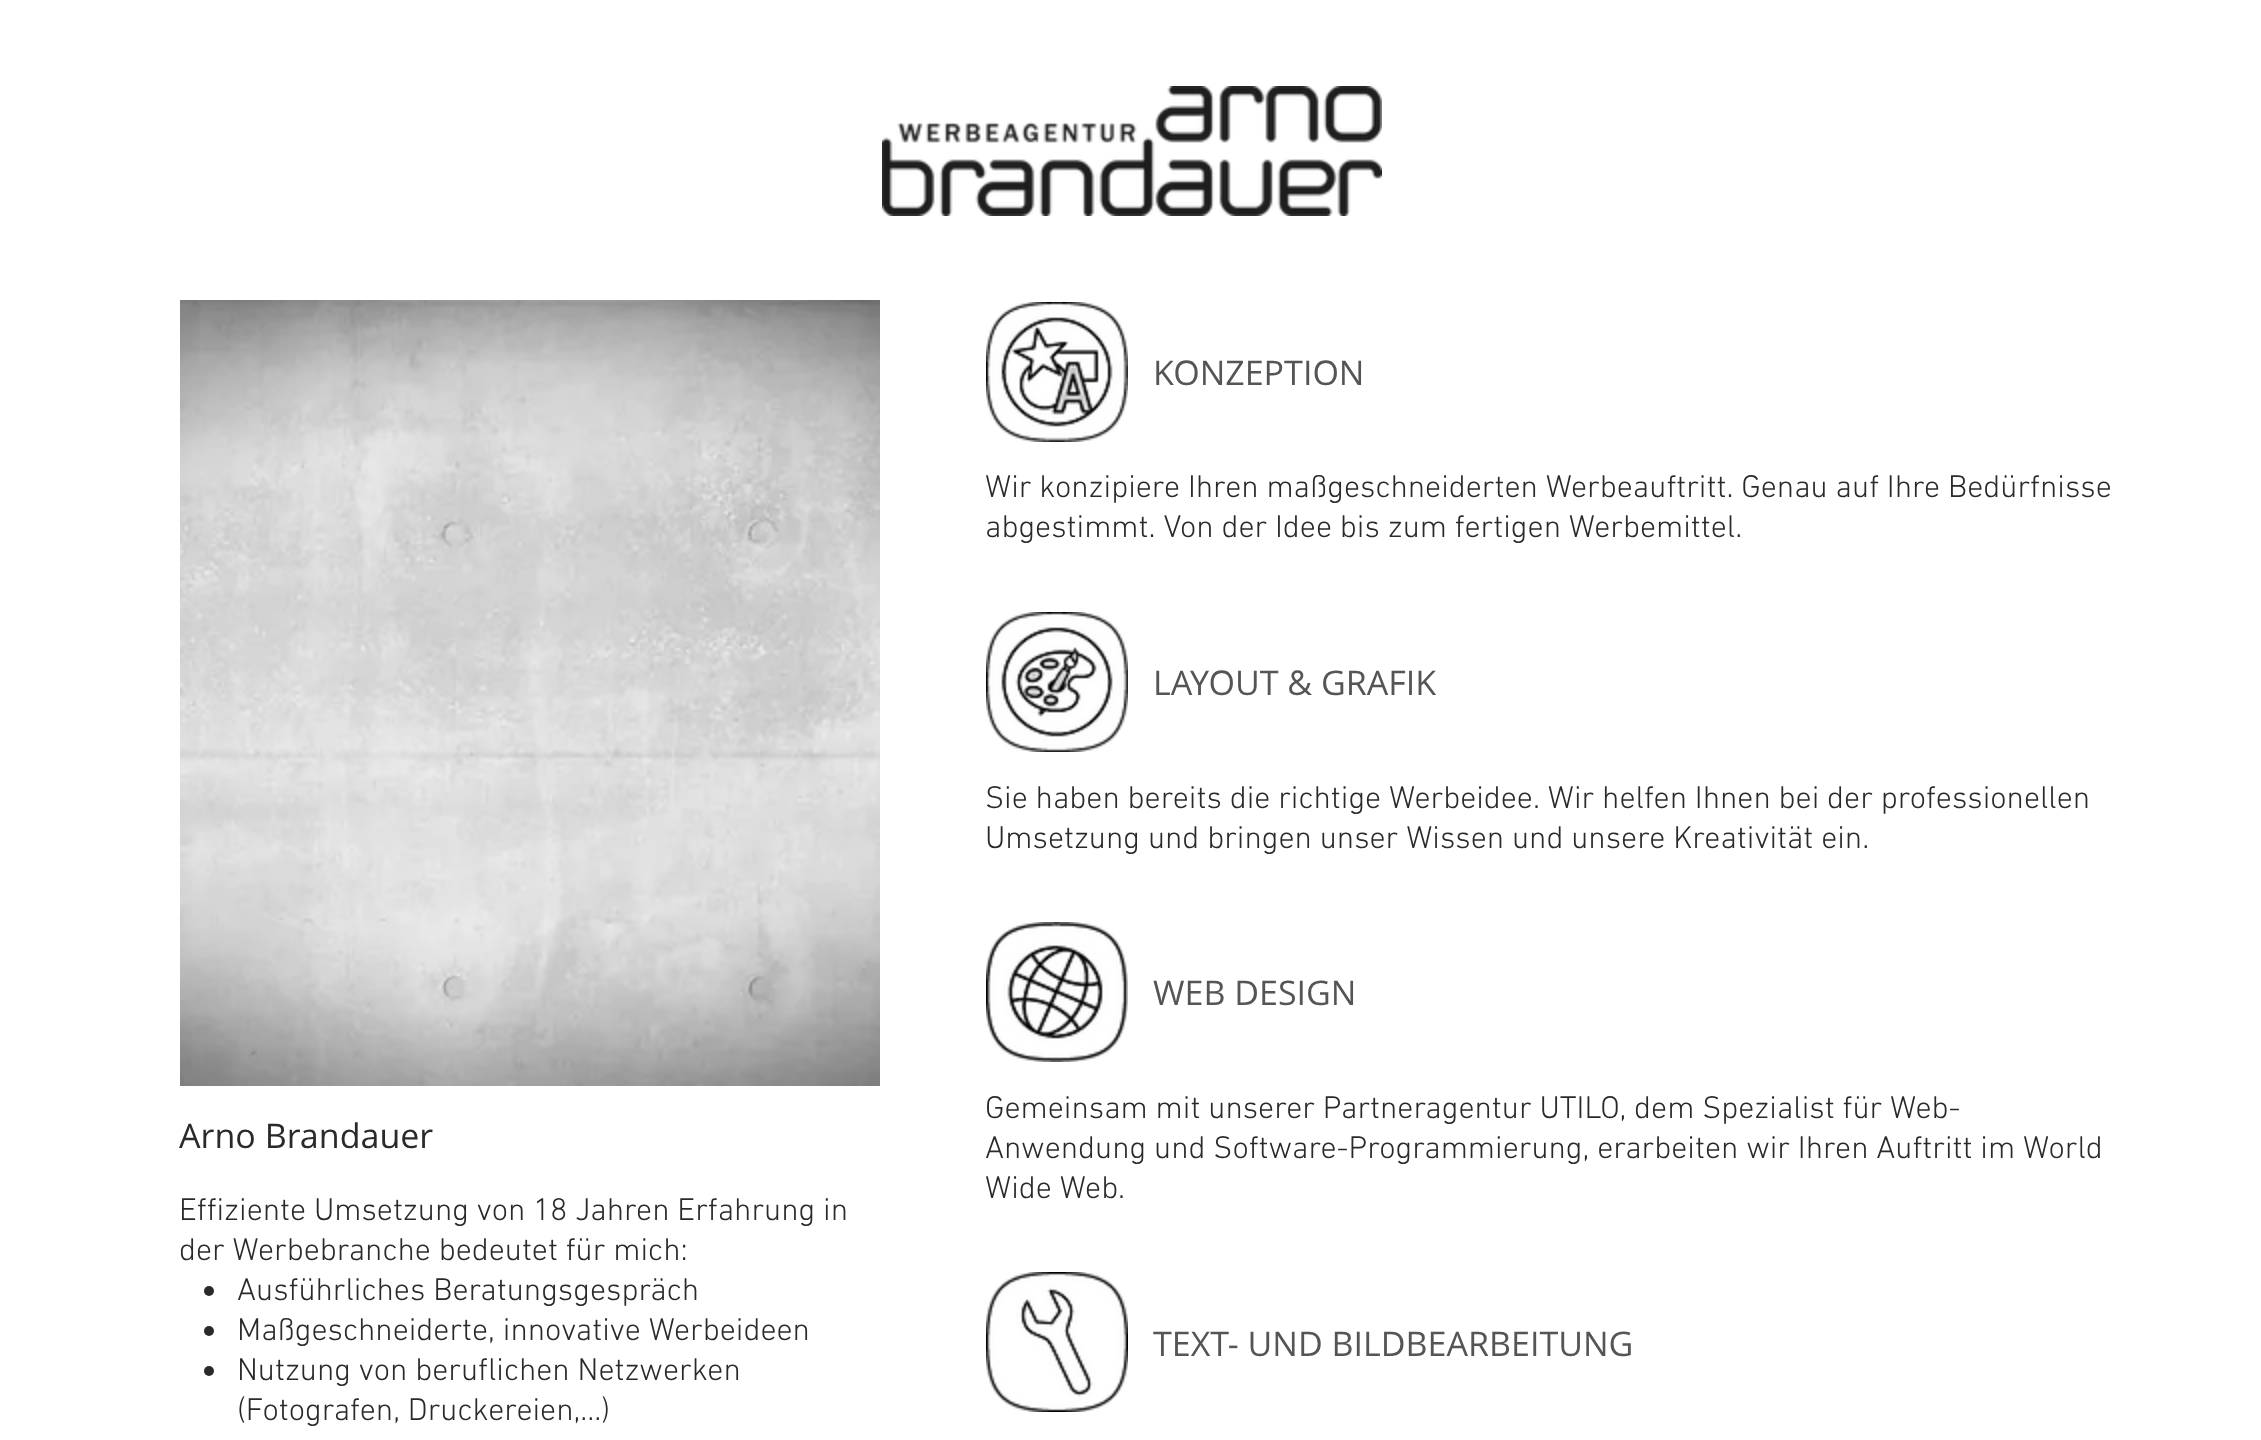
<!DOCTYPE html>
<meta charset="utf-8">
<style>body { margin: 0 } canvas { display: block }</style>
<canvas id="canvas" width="2261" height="1440"></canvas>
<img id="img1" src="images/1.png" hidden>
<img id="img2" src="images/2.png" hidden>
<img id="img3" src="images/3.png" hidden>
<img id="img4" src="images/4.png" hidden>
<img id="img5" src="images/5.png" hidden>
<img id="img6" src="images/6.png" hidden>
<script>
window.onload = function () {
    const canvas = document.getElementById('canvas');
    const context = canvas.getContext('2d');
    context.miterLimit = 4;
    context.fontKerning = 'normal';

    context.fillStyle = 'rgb(255, 255, 255)';
    context.fillRect(0, 0, 2261, 1440);
    context.drawImage(document.getElementById('img1'), 882, 86, 500, 130);
    context.drawImage(document.getElementById('img2'), 180, 300, 700, 786);
    context.drawImage(document.getElementById('img3'), 986, 302, 142, 140);
    context.drawImage(document.getElementById('img4'), 986, 612, 142, 140);
    context.drawImage(document.getElementById('img5'), 986, 922, 142, 140);
    context.drawImage(document.getElementById('img6'), 986, 1272, 142, 140);
    context.fillStyle = 'rgb(42, 42, 42)';
    context.beginPath();
    context.arc(209, 1291, 5, 0, 2 * Math.PI);
    context.fill();
    context.beginPath();
    context.arc(209, 1331, 5, 0, 2 * Math.PI);
    context.fill();
    context.beginPath();
    context.arc(209, 1371, 5, 0, 2 * Math.PI);
    context.fill();
    context.font = '34px Open Sans';
    context.fillStyle = 'rgb(85, 85, 85)';
    context.fillText('KONZEPTION', 1153, 385);
    context.font = '300 32px "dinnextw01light"';
    context.fillStyle = 'rgb(42, 42, 42)';
    context.fillText('Wir konzipiere Ihren maßgeschneiderten Werbeauftritt. Genau auf Ihre Bedürfnisse', 985, 497);
    context.fillText('abgestimmt. Von der Idee bis zum fertigen Werbemittel.', 985, 537);
    context.font = '34px Open Sans';
    context.fillStyle = 'rgb(85, 85, 85)';
    context.fillText('LAYOUT & GRAFIK', 1153, 695);
    context.font = '300 32px "dinnextw01light"';
    context.fillStyle = 'rgb(42, 42, 42)';
    context.fillText('Sie haben bereits die richtige Werbeidee. Wir helfen Ihnen bei der professionellen', 985, 808);
    context.fillText('Umsetzung und bringen unser Wissen und unsere Kreativität ein.', 985, 848);
    context.font = '34px Open Sans';
    context.fillStyle = 'rgb(85, 85, 85)';
    context.fillText('WEB DESIGN', 1153, 1005);
    context.font = '300 32px "dinnextw01light"';
    context.fillStyle = 'rgb(42, 42, 42)';
    context.fillText('Gemeinsam mit unserer Partneragentur UTILO, dem Spezialist für Web-', 985, 1118);
    context.fillText('Anwendung und Software-Programmierung, erarbeiten wir Ihren Auftritt im World', 985, 1158);
    context.fillText('Wide Web.', 985, 1198);
    context.font = '34px Open Sans';
    context.fillStyle = 'rgb(85, 85, 85)';
    context.fillText('TEXT- UND BILDBEARBEITUNG', 1153, 1356);
    context.fillStyle = 'rgb(42, 42, 42)';
    context.fillText('Arno Brandauer', 179, 1148);
    context.font = '300 32px "dinnextw01light"';
    context.fillText('Effiziente Umsetzung von 18 Jahren Erfahrung in', 179, 1220);
    context.fillText('der Werbebranche bedeutet für mich:', 179, 1260);
    context.fillText('Ausführliches Beratungsgespräch', 237, 1300);
    context.fillText('Maßgeschneiderte, innovative Werbeideen', 237, 1340);
    context.fillText('Nutzung von beruflichen Netzwerken', 237, 1380);
    context.fillText('(Fotografen, Druckereien,...)', 237, 1420);
};
</script>
